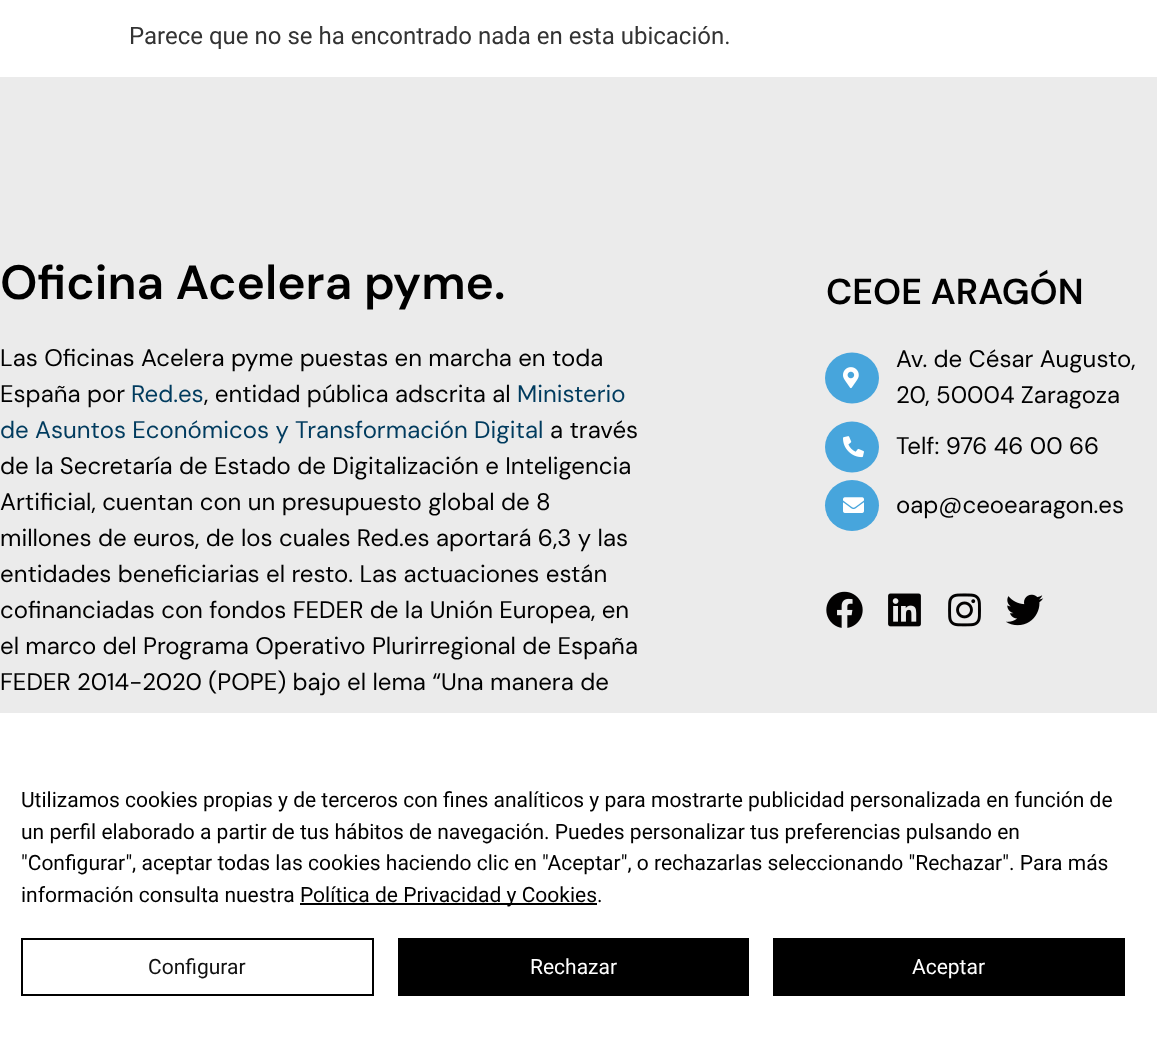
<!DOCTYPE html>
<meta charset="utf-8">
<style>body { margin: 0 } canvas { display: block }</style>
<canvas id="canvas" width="1157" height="1038"></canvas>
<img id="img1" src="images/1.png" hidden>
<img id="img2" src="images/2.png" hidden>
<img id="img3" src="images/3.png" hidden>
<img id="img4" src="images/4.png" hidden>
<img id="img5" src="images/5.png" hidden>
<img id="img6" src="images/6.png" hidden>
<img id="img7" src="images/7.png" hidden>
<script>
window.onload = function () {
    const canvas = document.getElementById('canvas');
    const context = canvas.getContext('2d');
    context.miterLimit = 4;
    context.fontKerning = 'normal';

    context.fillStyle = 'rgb(255, 255, 255)';
    context.fillRect(0, 0, 1157, 1038);
    context.fillStyle = 'rgb(235, 235, 235)';
    context.fillRect(0, 77, 1157, 636);
    context.fillStyle = 'rgb(71, 165, 220)';
    context.beginPath();
    context.ellipse(852, 378, 27, 25.5, 0, 0, 2 * Math.PI);
    context.fill();
    context.drawImage(document.getElementById('img1'), 843, 367, 16, 22);
    context.beginPath();
    context.ellipse(852, 447, 27, 25.5, 0, 0, 2 * Math.PI);
    context.fill();
    context.drawImage(document.getElementById('img2'), 843, 436, 21, 22);
    context.beginPath();
    context.ellipse(852, 505.5, 27, 25.5, 0, 0, 2 * Math.PI);
    context.fill();
    context.drawImage(document.getElementById('img3'), 843, 497, 21, 16);
    context.drawImage(document.getElementById('img4'), 826, 591, 37, 37);
    context.drawImage(document.getElementById('img5'), 888, 593, 33, 34);
    context.drawImage(document.getElementById('img6'), 948, 593, 33, 34);
    context.drawImage(document.getElementById('img7'), 1006, 594, 38, 32);
    context.fillStyle = 'rgb(0, 0, 0)';
    context.fillRect(300, 903, 297, 2);
    context.strokeStyle = 'rgb(0, 0, 0)';
    context.lineWidth = 2;
    context.strokeRect(22, 939, 351, 56);
    context.fillRect(398, 938, 351, 58);
    context.fillRect(773, 938, 352, 58);
    context.font = '24px Roboto';
    context.fillStyle = 'rgb(51, 51, 51)';
    context.fillText('Parece que no se ha encontrado nada en esta ubicación.', 129, 44);
    context.font = '600 48px DM Sans';
    context.fillStyle = 'rgb(0, 0, 0)';
    context.fillText('Oficina Acelera pyme.', 0, 299);
    context.font = '24px DM Sans';
    context.fillText('Las Oficinas Acelera pyme puestas en marcha en toda', 0, 366);
    context.fillText('España por', 0, 402);
    context.fillStyle = 'rgb(0, 59, 94)';
    context.fillText('Red.es', 131, 402);
    context.fillStyle = 'rgb(0, 0, 0)';
    context.fillText(', entidad pública adscrita al', 204, 402);
    context.fillStyle = 'rgb(0, 59, 94)';
    context.fillText('Ministerio', 517, 402);
    context.fillText('de Asuntos Económicos y Transformación Digital', 0, 438);
    context.fillStyle = 'rgb(0, 0, 0)';
    context.fillText('a través', 550, 438);
    context.fillText('de la Secretaría de Estado de Digitalización e Inteligencia', 0, 474);
    context.fillText('Artificial, cuentan con un presupuesto global de 8', 0, 510);
    context.fillText('millones de euros, de los cuales Red.es aportará 6,3 y las', 0, 546);
    context.fillText('entidades beneficiarias el resto. Las actuaciones están', 0, 582);
    context.fillText('cofinanciadas con fondos FEDER de la Unión Europea, en', 0, 618);
    context.fillText('el marco del Programa Operativo Plurirregional de España', 0, 654);
    context.fillText('FEDER 2014-2020 (POPE) bajo el lema “Una manera de', 0, 690);
    context.font = '600 36px DM Sans';
    context.fillText('CEOE ARAGÓN', 826, 304);
    context.font = '24px DM Sans';
    context.fillText('Av. de César Augusto,', 896, 367);
    context.fillText('20, 50004 Zaragoza', 896, 403);
    context.fillText('Telf: 976 46 00 66', 896, 454);
    context.fillText('oap@ceoearagon.es', 896, 513);
    context.font = '21px Roboto';
    context.fillText('Utilizamos cookies propias y de terceros con fines analíticos y para mostrarte publicidad personalizada en función de', 21, 807);
    context.fillText('un perfil elaborado a partir de tus hábitos de navegación. Puedes personalizar tus preferencias pulsando en', 21, 839);
    context.fillText('"Configurar", aceptar todas las cookies haciendo clic en "Aceptar", o rechazarlas seleccionando "Rechazar". Para más', 21, 870);
    context.fillText('información consulta nuestra', 21, 902);
    context.fillText('Política de Privacidad y Cookies.', 300, 902);
    context.fillStyle = 'rgb(17, 17, 17)';
    context.fillText('Configurar', 148, 974);
    context.fillStyle = 'rgb(255, 255, 255)';
    context.fillText('Rechazar', 530, 974);
    context.fillText('Aceptar', 912, 974);
};
</script>
